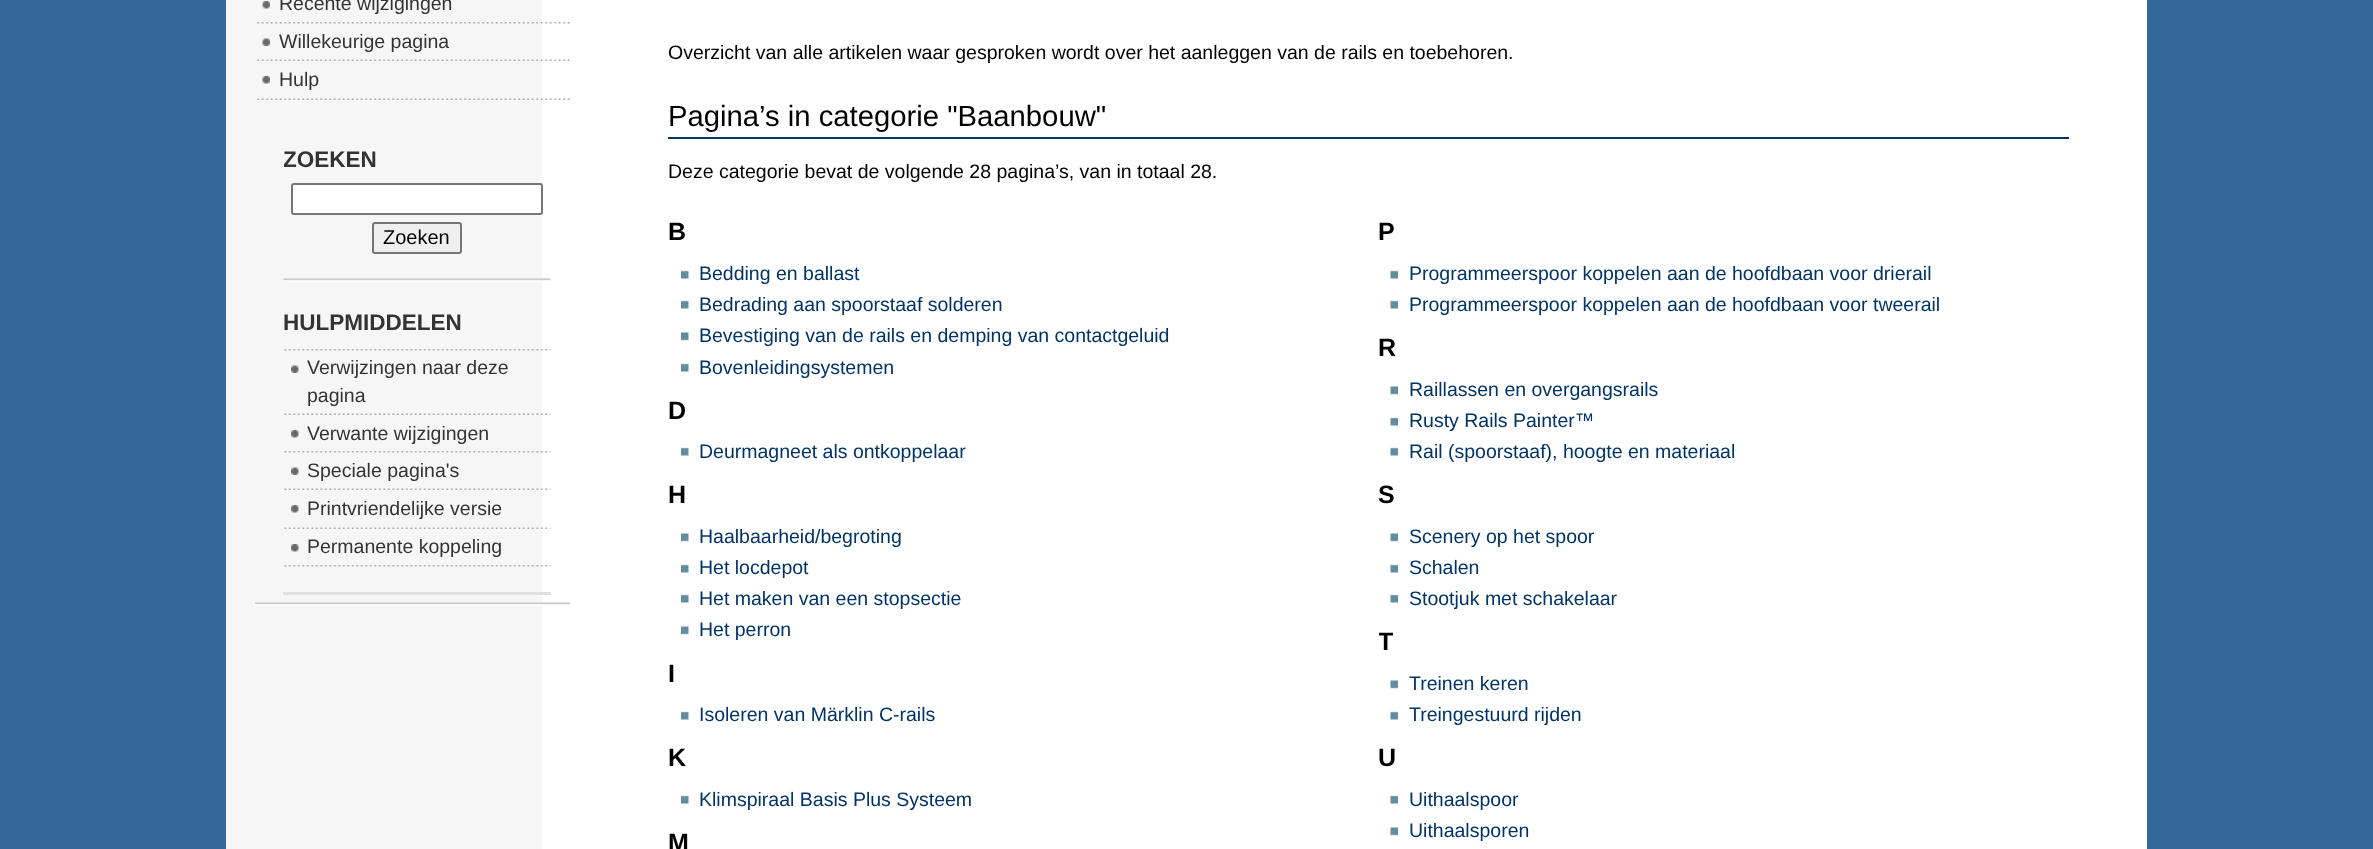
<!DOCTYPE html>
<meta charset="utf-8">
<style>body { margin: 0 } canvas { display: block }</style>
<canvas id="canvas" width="2373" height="849"></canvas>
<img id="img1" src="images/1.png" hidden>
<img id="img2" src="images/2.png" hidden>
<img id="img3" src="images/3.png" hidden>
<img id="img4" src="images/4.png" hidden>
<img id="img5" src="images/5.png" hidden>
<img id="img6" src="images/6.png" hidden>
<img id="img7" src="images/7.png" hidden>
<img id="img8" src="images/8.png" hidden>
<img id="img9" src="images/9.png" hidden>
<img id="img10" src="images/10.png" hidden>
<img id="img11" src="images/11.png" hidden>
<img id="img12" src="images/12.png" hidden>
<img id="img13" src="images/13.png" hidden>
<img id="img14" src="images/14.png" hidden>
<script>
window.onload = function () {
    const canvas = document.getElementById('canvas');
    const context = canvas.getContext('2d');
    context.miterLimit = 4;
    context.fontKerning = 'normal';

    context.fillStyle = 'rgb(51, 102, 153)';
    context.fillRect(0, 0, 2373, 849);
    context.fillStyle = 'rgb(255, 255, 255)';
    context.fillRect(542, 0, 1605, 849);
    context.fillStyle = 'rgb(246, 246, 246)';
    context.fillRect(226, 0, 316, 849);
    context.drawImage(document.getElementById('img1'), 255, 602, 315, 4);
    context.drawImage(document.getElementById('img2'), 262, 1, 8, 8);
    context.drawImage(document.getElementById('img3'), 257, 22, 313, 2);
    context.drawImage(document.getElementById('img4'), 262, 38, 8, 8);
    context.drawImage(document.getElementById('img5'), 257, 59, 313, 2);
    context.drawImage(document.getElementById('img2'), 262, 76, 8, 8);
    context.drawImage(document.getElementById('img5'), 257, 98, 313, 2);
    context.drawImage(document.getElementById('img6'), 283, 278, 268, 4);
    context.fillStyle = 'rgb(255, 255, 255)';
    context.beginPath();
    context.roundRect(292, 184, 250, 30, 2);
    context.fill();
    context.strokeStyle = 'rgb(118, 118, 118)';
    context.lineWidth = 2;
    context.stroke();
    context.fillStyle = 'rgb(239, 239, 239)';
    context.beginPath();
    context.roundRect(373, 223, 88, 30, 2);
    context.fill();
    context.stroke();
    context.fillStyle = 'rgb(224, 224, 224)';
    context.fillRect(283, 592, 268, 3);
    context.drawImage(document.getElementById('img7'), 284, 349, 267, 2);
    context.drawImage(document.getElementById('img8'), 291, 365, 8, 8);
    context.drawImage(document.getElementById('img9'), 284, 413, 267, 2);
    context.drawImage(document.getElementById('img10'), 291, 430, 8, 8);
    context.drawImage(document.getElementById('img7'), 284, 451, 267, 2);
    context.drawImage(document.getElementById('img8'), 291, 467, 8, 8);
    context.drawImage(document.getElementById('img9'), 284, 488, 267, 2);
    context.drawImage(document.getElementById('img10'), 291, 505, 8, 8);
    context.drawImage(document.getElementById('img9'), 284, 527, 267, 2);
    context.drawImage(document.getElementById('img10'), 291, 544, 8, 8);
    context.drawImage(document.getElementById('img7'), 284, 565, 267, 2);
    context.fillStyle = 'rgb(0, 51, 102)';
    context.fillRect(668, 137, 1401, 2);
    context.drawImage(document.getElementById('img11'), 681, 270, 8, 9);
    context.drawImage(document.getElementById('img11'), 681, 300, 8, 9);
    context.drawImage(document.getElementById('img12'), 681, 332, 8, 9);
    context.drawImage(document.getElementById('img11'), 681, 363, 8, 9);
    context.drawImage(document.getElementById('img13'), 1390, 270, 8, 9);
    context.drawImage(document.getElementById('img13'), 1390, 300, 8, 9);
    context.drawImage(document.getElementById('img11'), 681, 447, 8, 9);
    context.drawImage(document.getElementById('img14'), 1390, 386, 8, 9);
    context.drawImage(document.getElementById('img13'), 1390, 417, 8, 9);
    context.drawImage(document.getElementById('img13'), 1390, 447, 8, 9);
    context.drawImage(document.getElementById('img12'), 681, 533, 8, 9);
    context.drawImage(document.getElementById('img11'), 681, 564, 8, 9);
    context.drawImage(document.getElementById('img11'), 681, 594, 8, 9);
    context.drawImage(document.getElementById('img12'), 681, 626, 8, 9);
    context.drawImage(document.getElementById('img14'), 1390, 533, 8, 9);
    context.drawImage(document.getElementById('img13'), 1390, 564, 8, 9);
    context.drawImage(document.getElementById('img13'), 1390, 594, 8, 9);
    context.drawImage(document.getElementById('img11'), 681, 711, 8, 9);
    context.drawImage(document.getElementById('img14'), 1390, 680, 8, 9);
    context.drawImage(document.getElementById('img13'), 1390, 711, 8, 9);
    context.drawImage(document.getElementById('img11'), 681, 795, 8, 9);
    context.drawImage(document.getElementById('img13'), 1390, 795, 8, 9);
    context.drawImage(document.getElementById('img14'), 1390, 827, 8, 9);
    context.font = '19.5px Liberation Sans';
    context.fillStyle = 'rgb(51, 51, 51)';
    context.fillText('Recente wijzigingen', 279, 10);
    context.fillText('Willekeurige pagina', 279, 48);
    context.fillText('Hulp', 279, 86);
    context.save();
    context.beginPath();
    context.rect(284, 135, 267, 48);
    context.clip();
    context.font = 'bold 22.5px Liberation Sans';
    context.fillText('ZOEKEN', 283, 167);
    context.restore();
    context.font = '20px Liberation Sans';
    context.fillStyle = 'rgb(0, 0, 0)';
    context.fillText('Zoeken', 383, 244);
    context.font = 'bold 22.5px Liberation Sans';
    context.fillStyle = 'rgb(51, 51, 51)';
    context.fillText('HULPMIDDELEN', 283, 330);
    context.font = '19.5px Liberation Sans';
    context.fillText('Verwijzingen naar deze', 307, 374);
    context.fillText('pagina', 307, 402);
    context.fillText('Verwante wijzigingen', 307, 440);
    context.fillText('Speciale pagina\'s', 307, 477);
    context.fillText('Printvriendelijke versie', 307, 515);
    context.fillText('Permanente koppeling', 307, 553);
    context.fillStyle = 'rgb(0, 0, 0)';
    context.fillText('Overzicht van alle artikelen waar gesproken wordt over het aanleggen van de rails en toebehoren.', 668, 59);
    context.font = '29.25px Liberation Sans';
    context.fillText('Pagina’s in categorie "Baanbouw"', 668, 126);
    context.font = '19.5px Liberation Sans';
    context.fillText('Deze categorie bevat de volgende 28 pagina’s, van in totaal 28.', 668, 178);
    context.font = 'bold 25px Liberation Sans';
    context.fillText('B', 668, 240);
    context.font = '19.5px Liberation Sans';
    context.fillStyle = 'rgb(0, 51, 102)';
    context.fillText('Bedding en ballast', 699, 280);
    context.fillText('Bedrading aan spoorstaaf solderen', 699, 311);
    context.fillText('Bevestiging van de rails en demping van contactgeluid', 699, 342);
    context.fillText('Bovenleidingsystemen', 699, 374);
    context.font = 'bold 25px Liberation Sans';
    context.fillStyle = 'rgb(0, 0, 0)';
    context.fillText('P', 1378, 240);
    context.font = '19.5px Liberation Sans';
    context.fillStyle = 'rgb(0, 51, 102)';
    context.fillText('Programmeerspoor koppelen aan de hoofdbaan voor drierail', 1409, 280);
    context.fillText('Programmeerspoor koppelen aan de hoofdbaan voor tweerail', 1409, 311);
    context.font = 'bold 25px Liberation Sans';
    context.fillStyle = 'rgb(0, 0, 0)';
    context.fillText('D', 668, 419);
    context.font = '19.5px Liberation Sans';
    context.fillStyle = 'rgb(0, 51, 102)';
    context.fillText('Deurmagneet als ontkoppelaar', 699, 458);
    context.font = 'bold 25px Liberation Sans';
    context.fillStyle = 'rgb(0, 0, 0)';
    context.fillText('R', 1378, 356);
    context.font = '19.5px Liberation Sans';
    context.fillStyle = 'rgb(0, 51, 102)';
    context.fillText('Raillassen en overgangsrails', 1409, 396);
    context.fillText('Rusty Rails Painter™', 1409, 427);
    context.fillText('Rail (spoorstaaf), hoogte en materiaal', 1409, 458);
    context.font = 'bold 25px Liberation Sans';
    context.fillStyle = 'rgb(0, 0, 0)';
    context.fillText('H', 668, 503);
    context.font = '19.5px Liberation Sans';
    context.fillStyle = 'rgb(0, 51, 102)';
    context.fillText('Haalbaarheid/begroting', 699, 543);
    context.fillText('Het locdepot', 699, 574);
    context.fillText('Het maken van een stopsectie', 699, 605);
    context.fillText('Het perron', 699, 636);
    context.font = 'bold 25px Liberation Sans';
    context.fillStyle = 'rgb(0, 0, 0)';
    context.fillText('S', 1378, 503);
    context.font = '19.5px Liberation Sans';
    context.fillStyle = 'rgb(0, 51, 102)';
    context.fillText('Scenery op het spoor', 1409, 543);
    context.fillText('Schalen', 1409, 574);
    context.fillText('Stootjuk met schakelaar', 1409, 605);
    context.font = 'bold 25px Liberation Sans';
    context.fillStyle = 'rgb(0, 0, 0)';
    context.fillText('I', 668, 682);
    context.font = '19.5px Liberation Sans';
    context.fillStyle = 'rgb(0, 51, 102)';
    context.fillText('Isoleren van Märklin C-rails', 699, 721);
    context.save();
    context.beginPath();
    context.rect(1379, 615, 690, 47);
    context.clip();
    context.font = 'bold 25px Liberation Sans';
    context.fillStyle = 'rgb(0, 0, 0)';
    context.fillText('T', 1378, 650);
    context.restore();
    context.fillText('Treinen keren', 1409, 690);
    context.fillText('Treingestuurd rijden', 1409, 721);
    context.font = 'bold 25px Liberation Sans';
    context.fillStyle = 'rgb(0, 0, 0)';
    context.fillText('K', 668, 766);
    context.font = '19.5px Liberation Sans';
    context.fillStyle = 'rgb(0, 51, 102)';
    context.fillText('Klimspiraal Basis Plus Systeem', 699, 806);
    context.font = 'bold 25px Liberation Sans';
    context.fillStyle = 'rgb(0, 0, 0)';
    context.fillText('U', 1378, 766);
    context.font = '19.5px Liberation Sans';
    context.fillStyle = 'rgb(0, 51, 102)';
    context.fillText('Uithaalspoor', 1409, 806);
    context.fillText('Uithaalsporen', 1409, 837);
    context.font = 'bold 25px Liberation Sans';
    context.fillStyle = 'rgb(0, 0, 0)';
    context.fillText('M', 668, 851);
};
</script>
